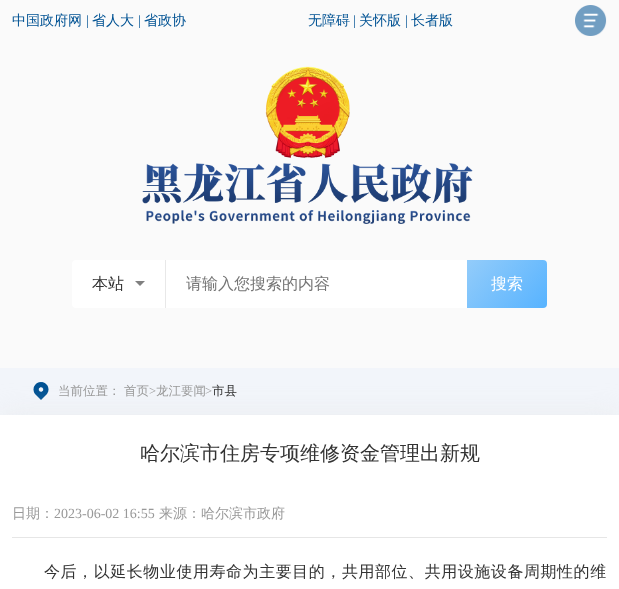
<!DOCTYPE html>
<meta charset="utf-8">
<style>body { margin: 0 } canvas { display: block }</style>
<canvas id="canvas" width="619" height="589"></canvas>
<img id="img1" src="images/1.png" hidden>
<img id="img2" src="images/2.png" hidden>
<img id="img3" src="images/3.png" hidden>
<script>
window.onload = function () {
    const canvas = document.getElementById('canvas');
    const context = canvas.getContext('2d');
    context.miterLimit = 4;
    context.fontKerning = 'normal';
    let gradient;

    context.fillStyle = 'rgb(250, 250, 250)';
    context.fillRect(0, 0, 619, 589);
    context.drawImage(document.getElementById('img1'), 575, 5, 32, 31);
    context.drawImage(document.getElementById('img2'), 142, 66, 331, 158);
    context.fillStyle = 'rgb(255, 255, 255)';
    context.beginPath();
    context.roundRect(72, 260, 475, 48, 4);
    context.fill();
    context.fillStyle = 'rgb(232, 232, 232)';
    context.fillRect(165, 260, 1, 48);
    context.fillStyle = 'rgb(128, 128, 128)';
    context.beginPath();
    context.moveTo(135, 281);
    context.lineTo(145, 281);
    context.lineTo(140, 286);
    context.closePath();
    context.fill();
    gradient = context.createLinearGradient(472, 254, 542, 314);
    gradient.addColorStop(0, 'rgb(147, 204, 250)');
    gradient.addColorStop(1, 'rgb(87, 179, 255)');
    context.fillStyle = gradient;
    context.beginPath();
    context.roundRect(467, 260, 80, 48, [0, 4, 4, 0]);
    context.fill();
    context.fillStyle = 'rgb(242, 245, 250)';
    context.fillRect(0, 368, 619, 47);
    context.drawImage(document.getElementById('img3'), 33, 382, 16, 18);
    context.fillStyle = 'rgba(227, 227, 227, 0.5)';
    context.filter = 'blur(15px)';
    context.beginPath();
    context.rect(0, 417, 619, 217);
    context.fill();
    context.filter = 'none';
    context.fillStyle = 'rgb(255, 255, 255)';
    context.fillRect(0, 415, 619, 174);
    context.fillStyle = 'rgb(230, 230, 230)';
    context.fillRect(12, 537, 595, 1);
    context.font = '500 14px WenQuanYi Zen Hei';
    context.fillStyle = 'rgb(0, 82, 147)';
    context.fillText('中国政府网', 12, 25);
    context.font = '14px Liberation Serif';
    context.fillText('|', 86, 25);
    context.font = '500 14px WenQuanYi Zen Hei';
    context.fillText('省人大', 92, 25);
    context.font = '14px Liberation Serif';
    context.fillText('|', 138, 25);
    context.font = '500 14px WenQuanYi Zen Hei';
    context.fillText('省政协', 144, 25);
    context.fillText('无障碍', 308, 25);
    context.font = '14px Liberation Serif';
    context.fillText('|', 353, 25);
    context.font = '500 14px WenQuanYi Zen Hei';
    context.fillText('关怀版', 359, 25);
    context.font = '14px Liberation Serif';
    context.fillText('|', 405, 25);
    context.font = '500 14px WenQuanYi Zen Hei';
    context.fillText('长者版', 411, 25);
    context.font = '500 16px WenQuanYi Zen Hei';
    context.fillStyle = 'rgb(51, 51, 51)';
    context.fillText('本站', 92, 289);
    context.fillStyle = 'rgb(117, 117, 117)';
    context.fillText('请输入您搜索的内容', 186, 289);
    context.fillStyle = 'rgb(255, 255, 255)';
    context.fillText('搜索', 491, 289);
    context.font = '500 12.5px WenQuanYi Zen Hei';
    context.fillStyle = 'rgb(153, 153, 153)';
    context.fillText('当前位置：', 58, 395);
    context.fillText('首页', 124, 395);
    context.font = '12.5px Liberation Serif';
    context.fillText('>', 149, 395);
    context.font = '500 12.5px WenQuanYi Zen Hei';
    context.fillText('龙江要闻', 156, 395);
    context.font = '12.5px Liberation Serif';
    context.fillText('>', 205, 395);
    context.font = '500 12.5px WenQuanYi Zen Hei';
    context.fillStyle = 'rgb(51, 51, 51)';
    context.fillText('市县', 212, 395);
    context.font = '500 20px WenQuanYi Zen Hei';
    context.fillText('哈尔滨市住房专项维修资金管理出新规', 140, 460);
    context.font = '500 14px WenQuanYi Zen Hei';
    context.fillStyle = 'rgb(153, 153, 153)';
    context.fillText('日期：', 12, 518);
    context.font = '14px Liberation Serif';
    context.fillText('2023-06-02 16:55', 54, 518);
    context.font = '500 14px WenQuanYi Zen Hei';
    context.fillText('来源：哈尔滨市政府', 159, 518);
    context.letterSpacing = '0.55px';
    context.font = '500 16px WenQuanYi Zen Hei';
    context.fillStyle = 'rgb(51, 51, 51)';
    context.fillText('今后，以延长物业使用寿命为主要目的，共用部位、共用设施设备周期性的维', 44, 577);
};
</script>
